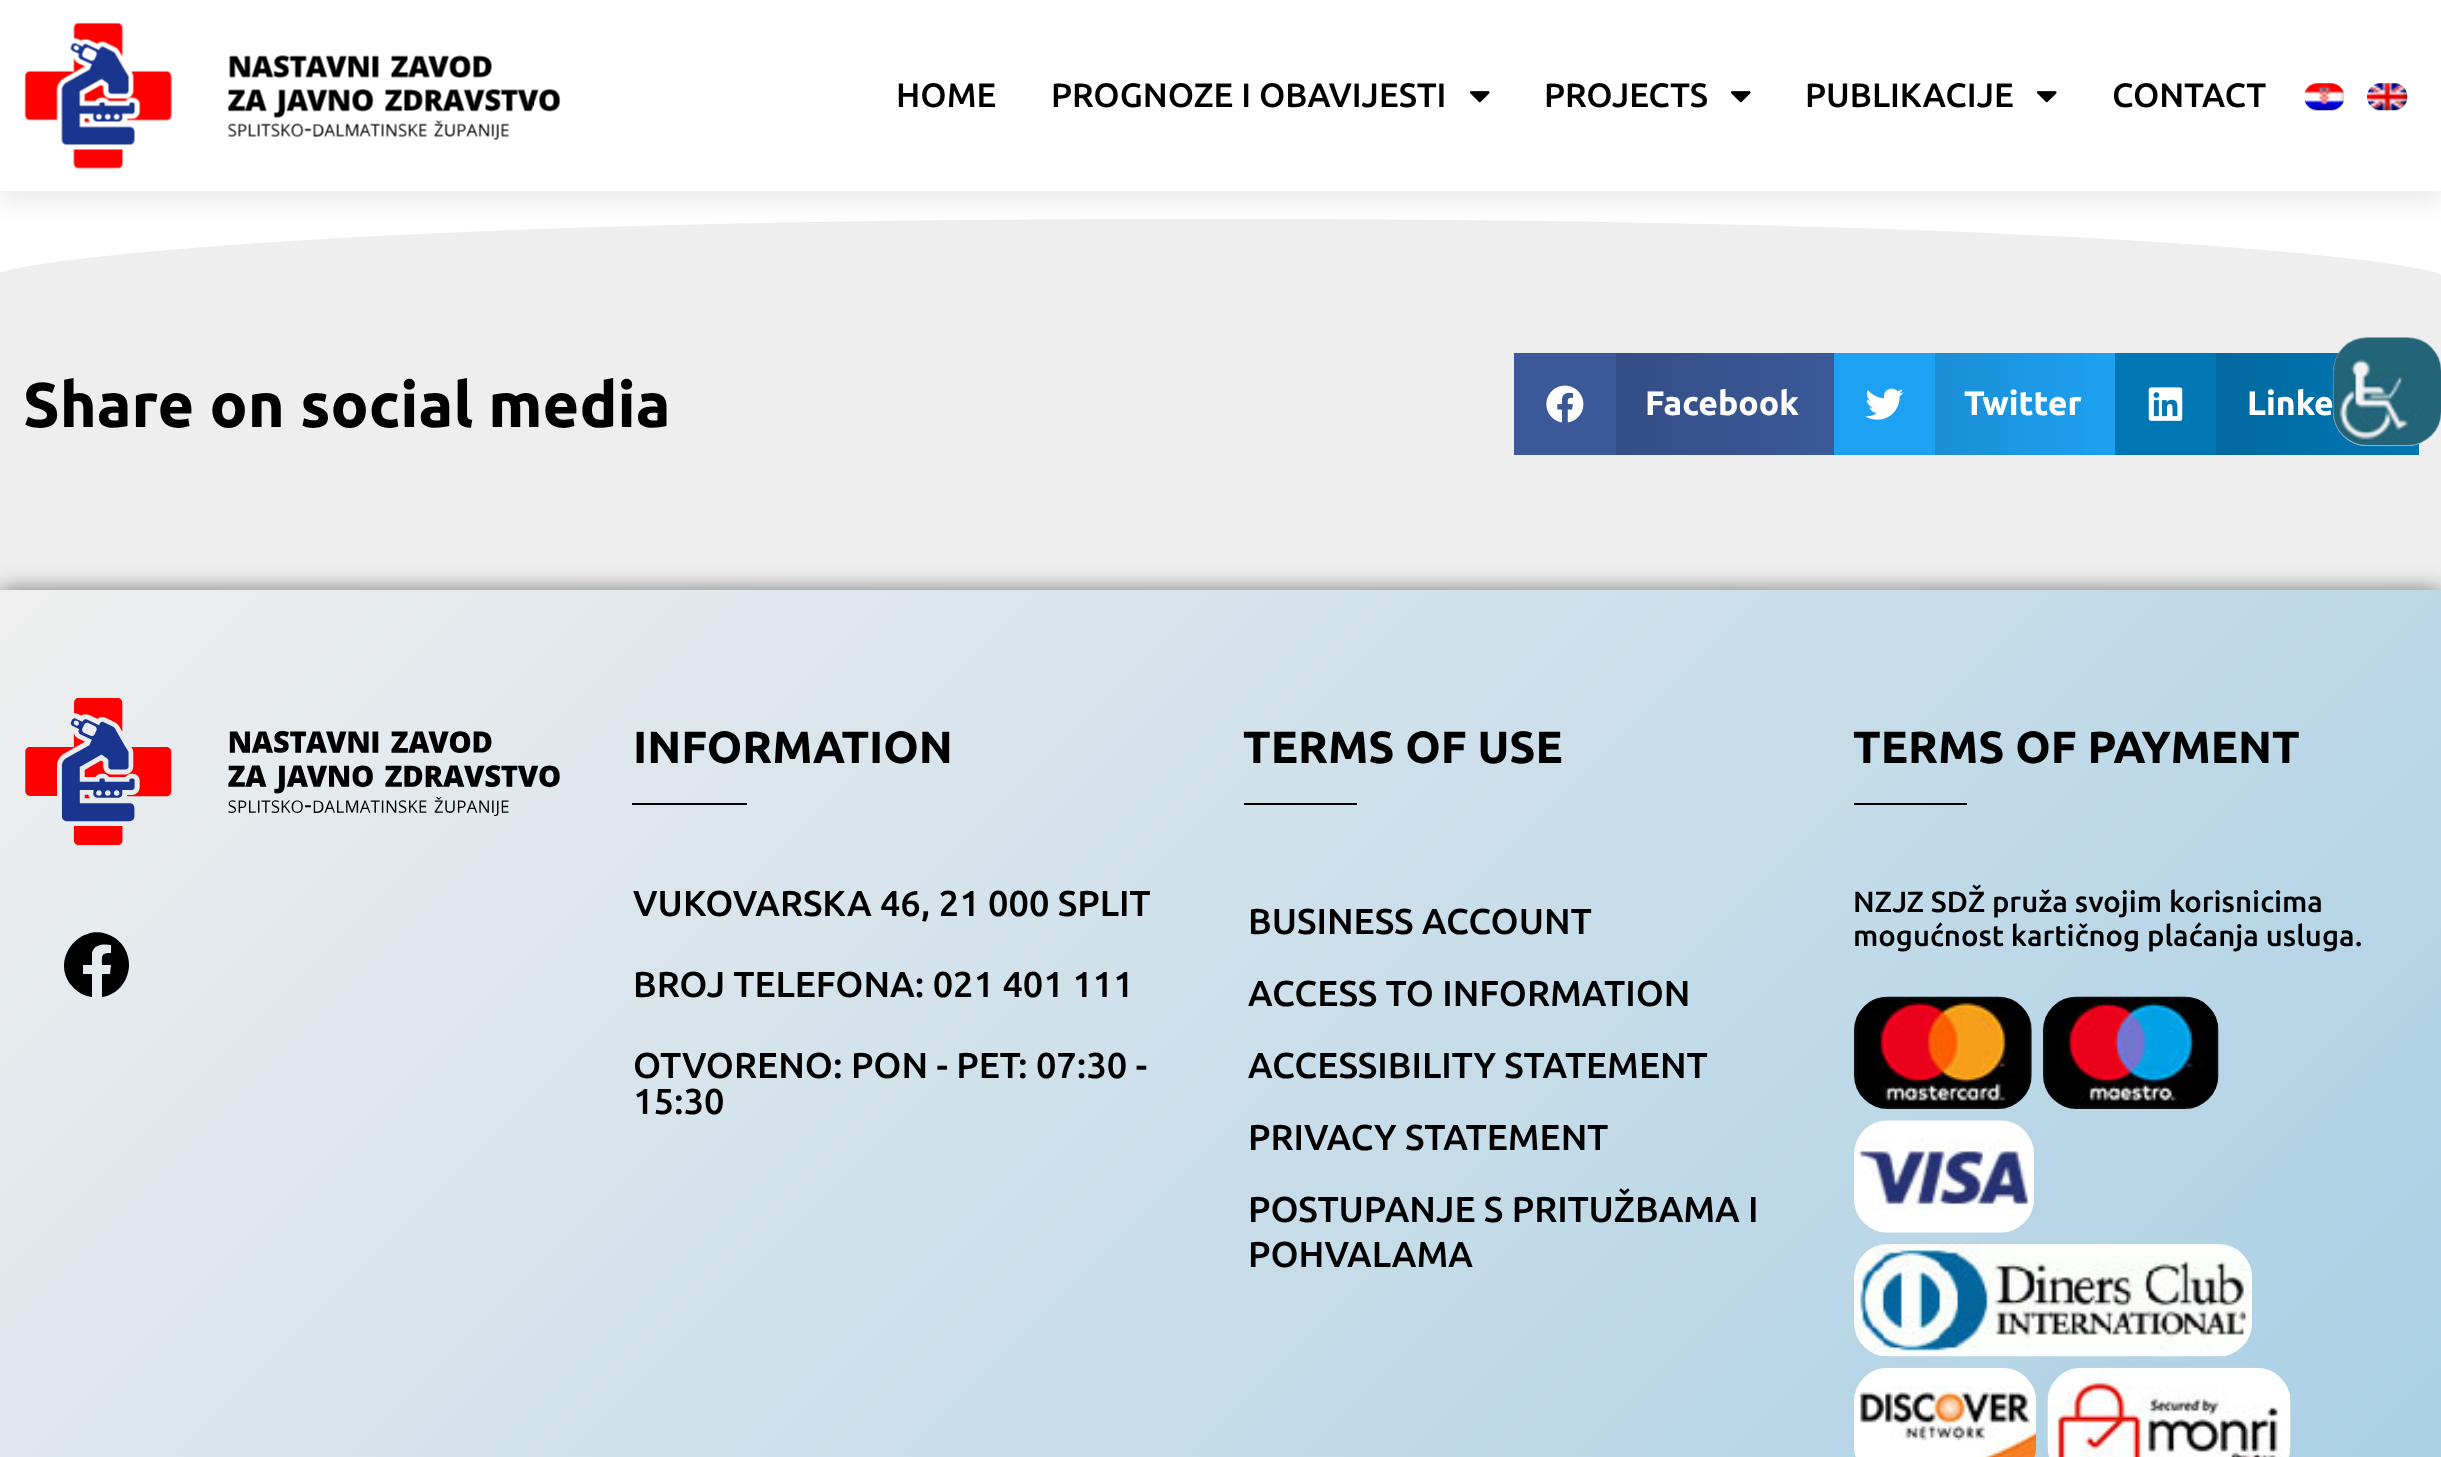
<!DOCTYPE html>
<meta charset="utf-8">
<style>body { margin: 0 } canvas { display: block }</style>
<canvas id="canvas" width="2441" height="1457"></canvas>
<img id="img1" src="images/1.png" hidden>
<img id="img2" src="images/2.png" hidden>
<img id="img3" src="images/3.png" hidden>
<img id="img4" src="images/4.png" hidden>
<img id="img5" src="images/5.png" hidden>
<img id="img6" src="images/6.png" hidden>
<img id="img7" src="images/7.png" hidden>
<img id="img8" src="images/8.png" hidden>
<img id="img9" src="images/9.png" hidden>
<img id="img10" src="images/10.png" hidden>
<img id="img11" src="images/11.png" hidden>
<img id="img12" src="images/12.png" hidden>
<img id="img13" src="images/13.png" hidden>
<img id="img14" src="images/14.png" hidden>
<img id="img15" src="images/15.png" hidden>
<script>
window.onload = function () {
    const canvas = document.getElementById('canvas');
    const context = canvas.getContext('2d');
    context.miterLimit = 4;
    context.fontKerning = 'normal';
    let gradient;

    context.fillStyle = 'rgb(255, 255, 255)';
    context.fillRect(0, 0, 2441, 1457);
    context.fillStyle = 'rgb(238, 238, 238)';
    context.fillRect(0, 219, 2441, 371);
    context.fillStyle = 'rgb(255, 255, 255)';
    context.beginPath();
    context.moveTo(1219, 219);
    context.bezierCurveTo(2132, 219, 2440, 264, 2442, 276);
    context.lineTo(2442, 217);
    context.lineTo(-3, 217);
    context.lineTo(-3, 275);
    context.bezierCurveTo(-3, 264, 307, 218, 1219, 219);
    context.closePath();
    context.fill();
    context.fillStyle = 'rgba(0, 0, 0, 0.08)';
    context.filter = 'blur(11px)';
    context.beginPath();
    context.rect(0, 11, 2441, 192);
    context.fill();
    context.filter = 'none';
    context.fillStyle = 'rgb(255, 255, 255)';
    context.fillRect(0, 0, 2441, 191);
    context.drawImage(document.getElementById('img1'), 24, 23, 537, 146);
    context.drawImage(document.getElementById('img2'), 1470, 91, 20, 12);
    context.drawImage(document.getElementById('img2'), 1731, 91, 20, 12);
    context.drawImage(document.getElementById('img2'), 2037, 91, 20, 12);
    context.drawImage(document.getElementById('img3'), 2304, 83, 41, 28);
    context.drawImage(document.getElementById('img4'), 2367, 83, 41, 28);
    context.fillStyle = 'rgb(59, 89, 152)';
    context.fillRect(1514, 353, 102, 102);
    context.drawImage(document.getElementById('img5'), 1546, 385, 38, 38);
    gradient = context.createLinearGradient(1616, 404, 1834, 404);
    gradient.addColorStop(0, 'rgb(52, 78, 134)');
    gradient.addColorStop(1, 'rgb(59, 89, 152)');
    context.fillStyle = gradient;
    context.fillRect(1616, 353, 218, 102);
    context.fillStyle = 'rgb(29, 161, 242)';
    context.fillRect(1834, 353, 101, 102);
    context.drawImage(document.getElementById('img6'), 1865, 388, 39, 32);
    gradient = context.createLinearGradient(1935, 404, 2115, 404);
    gradient.addColorStop(0, 'rgb(26, 142, 213)');
    gradient.addColorStop(1, 'rgb(29, 161, 242)');
    context.fillStyle = gradient;
    context.fillRect(1935, 353, 180, 102);
    context.fillStyle = 'rgb(0, 119, 181)';
    context.fillRect(2115, 353, 101, 102);
    context.drawImage(document.getElementById('img7'), 2148, 387, 35, 34);
    gradient = context.createLinearGradient(2216, 404, 2419, 404);
    gradient.addColorStop(0, 'rgb(0, 105, 159)');
    gradient.addColorStop(1, 'rgb(0, 119, 181)');
    context.fillStyle = gradient;
    context.fillRect(2216, 353, 203, 102);
    context.fillStyle = 'rgb(255, 255, 255)';
    context.beginPath();
    context.roundRect(2333, 338, 108, 108, 34);
    context.fill();
    context.drawImage(document.getElementById('img8'), 2333, 337, 108, 109);
    context.fillStyle = 'rgba(0, 0, 0, 0.5)';
    context.filter = 'blur(11px)';
    context.beginPath();
    context.rect(0, 590, 2441, 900);
    context.fill();
    context.filter = 'none';
    gradient = context.createLinearGradient(362, 227, 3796, 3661);
    gradient.addColorStop(0, 'rgb(239, 239, 239)');
    gradient.addColorStop(1, 'rgb(97, 174, 218)');
    context.fillStyle = gradient;
    context.fillRect(0, 590, 2441, 867);
    context.drawImage(document.getElementById('img9'), 25, 698, 535, 147);
    context.fillStyle = 'rgb(0, 0, 0)';
    context.beginPath();
    context.moveTo(129, 965);
    context.bezierCurveTo(129, 980, 118, 995, 102, 997);
    context.lineTo(102, 974);
    context.lineTo(110, 974);
    context.lineTo(111, 965);
    context.lineTo(102, 965);
    context.bezierCurveTo(102, 955, 101, 953, 111, 953);
    context.lineTo(111, 945);
    context.bezierCurveTo(104, 944, 94, 944, 92, 953);
    context.lineTo(92, 965);
    context.lineTo(83, 965);
    context.lineTo(83, 974);
    context.lineTo(92, 974);
    context.lineTo(92, 997);
    context.bezierCurveTo(84, 996, 77, 992, 72, 986);
    context.bezierCurveTo(48, 958, 84, 917, 115, 938);
    context.bezierCurveTo(124, 944, 129, 954, 129, 965);
    context.closePath();
    context.fill();
    context.fillRect(632, 803, 115, 2);
    context.fillRect(1244, 803, 113, 2);
    context.fillRect(1854, 803, 113, 2);
    context.drawImage(document.getElementById('img10'), 1854, 996, 178, 113);
    context.drawImage(document.getElementById('img11'), 2043, 996, 176, 113);
    context.drawImage(document.getElementById('img12'), 1854, 1120, 180, 113);
    context.drawImage(document.getElementById('img13'), 1854, 1244, 399, 113);
    context.drawImage(document.getElementById('img14'), 1854, 1367, 183, 90);
    context.drawImage(document.getElementById('img15'), 2047, 1367, 244, 90);
    context.font = '500 33.75px Ubuntu';
    context.fillText('HOME', 896, 107);
    context.fillText('PROGNOZE I OBAVIJESTI', 1051, 107);
    context.fillText('PROJECTS', 1544, 107);
    context.fillText('PUBLIKACIJE', 1805, 107);
    context.fillText('CONTACT', 2112, 107);
    context.font = 'bold 63px Ubuntu';
    context.fillText('Share on social media', 23, 427);
    context.font = 'bold 33.75px Ubuntu';
    context.fillStyle = 'rgb(255, 255, 255)';
    context.fillText('Facebook', 1645, 415);
    context.fillText('Twitter', 1964, 415);
    context.fillText('Linke', 2247, 415);
    context.font = 'bold 45px Ubuntu';
    context.fillStyle = 'rgb(0, 0, 0)';
    context.fillText('INFORMATION', 633, 763);
    context.font = '500 36px Ubuntu';
    context.fillText('VUKOVARSKA 46, 21 000 SPLIT', 633, 916);
    context.fillText('BROJ TELEFONA: 021 401 111', 633, 997);
    context.fillText('OTVORENO: PON - PET: 07:30 -', 633, 1078);
    context.fillText('15:30', 633, 1114);
    context.font = 'bold 45px Ubuntu';
    context.fillText('TERMS OF USE', 1243, 763);
    context.font = '500 36px Ubuntu';
    context.fillText('BUSINESS ACCOUNT', 1248, 934);
    context.fillText('ACCESS TO INFORMATION', 1248, 1006);
    context.fillText('ACCESSIBILITY STATEMENT', 1248, 1078);
    context.fillText('PRIVACY STATEMENT', 1248, 1150);
    context.fillText('POSTUPANJE S PRITUŽBAMA I', 1248, 1222);
    context.fillText('POHVALAMA', 1248, 1267);
    context.font = 'bold 45px Ubuntu';
    context.fillText('TERMS OF PAYMENT', 1853, 763);
    context.font = '500 29.25px Ubuntu';
    context.fillText('NZJZ SDŽ pruža svojim korisnicima', 1853, 912);
    context.fillText('mogućnost kartičnog plaćanja usluga.', 1853, 946);
};
</script>
